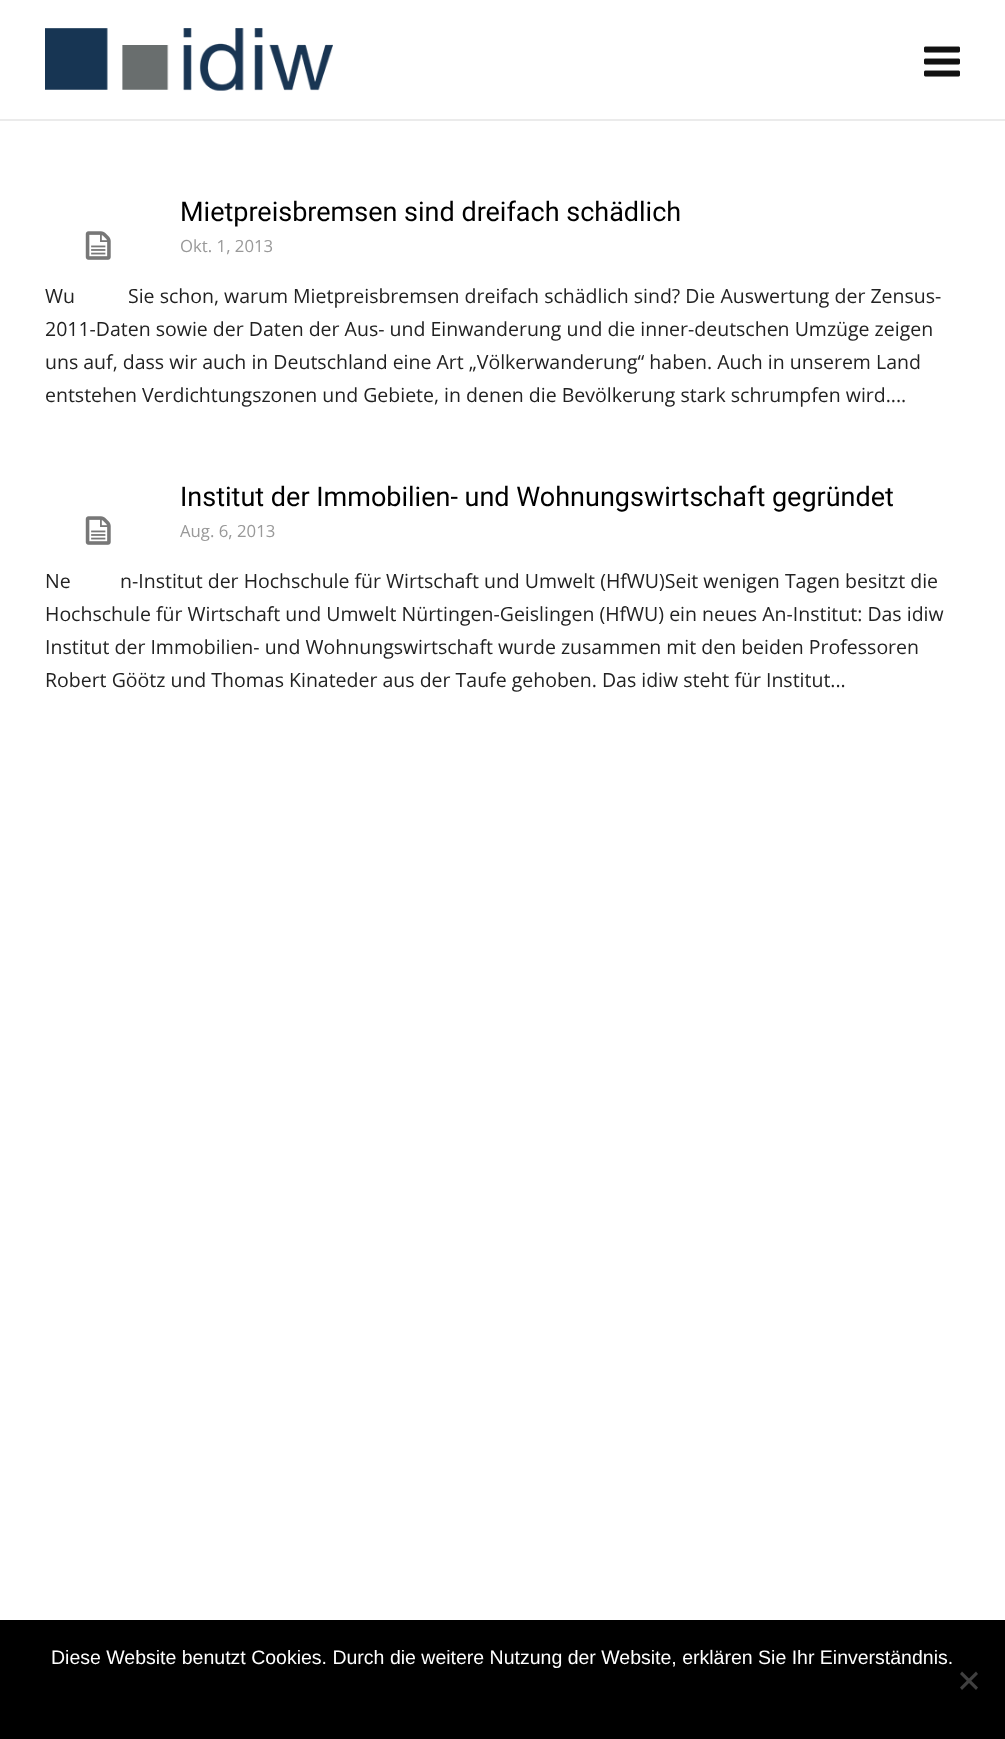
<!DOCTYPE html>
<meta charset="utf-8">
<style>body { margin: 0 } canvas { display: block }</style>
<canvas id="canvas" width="1005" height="1739"></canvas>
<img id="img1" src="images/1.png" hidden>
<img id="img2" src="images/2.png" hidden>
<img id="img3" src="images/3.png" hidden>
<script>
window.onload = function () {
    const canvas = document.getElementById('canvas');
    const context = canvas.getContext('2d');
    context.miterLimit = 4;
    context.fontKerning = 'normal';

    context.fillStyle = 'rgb(255, 255, 255)';
    context.fillRect(0, 0, 1005, 1739);
    context.fillStyle = 'rgb(235, 235, 235)';
    context.fillRect(0, 119, 1005, 2);
    context.drawImage(document.getElementById('img1'), 45, 28, 288, 63);
    context.drawImage(document.getElementById('img2'), 924, 46, 36, 31);
    context.fillStyle = 'rgb(0, 0, 0)';
    context.fillRect(0, 1620, 1005, 119);
    context.fillStyle = 'rgb(64, 64, 64)';
    context.beginPath();
    context.moveTo(976, 1671.5);
    context.lineTo(978, 1674);
    context.lineTo(962, 1690);
    context.lineTo(960, 1687.5);
    context.closePath();
    context.fill();
    context.beginPath();
    context.moveTo(960, 1674);
    context.lineTo(962, 1671.5);
    context.lineTo(978, 1687.5);
    context.lineTo(976, 1690);
    context.closePath();
    context.fill();
    context.font = '27px Roboto';
    context.fillStyle = 'rgb(0, 0, 0)';
    context.fillText('Mietpreisbremsen sind dreifach schädlich', 180, 221);
    context.font = '16.75px Open Sans';
    context.fillStyle = 'rgb(153, 153, 153)';
    context.fillText('Okt. 1, 2013', 180, 252);
    context.font = '19.5px Open Sans';
    context.fillStyle = 'rgb(34, 34, 34)';
    context.fillText('Wu', 45, 303);
    context.fillText('Sie schon, warum Mietpreisbremsen dreifach schädlich sind? Die Auswertung der Zensus-', 128, 303);
    context.fillStyle = 'rgb(255, 255, 255)';
    context.beginPath();
    context.arc(97.5, 246.5, 52.5, 0, 2 * Math.PI);
    context.fill();
    context.drawImage(document.getElementById('img3'), 85, 231, 26, 29);
    context.fillStyle = 'rgb(34, 34, 34)';
    context.fillText('2011-Daten sowie der Daten der Aus- und Einwanderung und die inner-deutschen Umzüge zeigen', 45, 336);
    context.fillText('uns auf, dass wir auch in Deutschland eine Art „Völkerwanderung“ haben. Auch in unserem Land', 45, 369);
    context.fillText('entstehen Verdichtungszonen und Gebiete, in denen die Bevölkerung stark schrumpfen wird....', 45, 402);
    context.font = '27px Roboto';
    context.fillStyle = 'rgb(0, 0, 0)';
    context.fillText('Institut der Immobilien- und Wohnungswirtschaft gegründet', 180, 506);
    context.font = '16.75px Open Sans';
    context.fillStyle = 'rgb(153, 153, 153)';
    context.fillText('Aug. 6, 2013', 180, 537);
    context.font = '19.5px Open Sans';
    context.fillStyle = 'rgb(34, 34, 34)';
    context.fillText('Ne', 45, 588);
    context.fillText('n-Institut der Hochschule für Wirtschaft und Umwelt (HfWU)Seit wenigen Tagen besitzt die', 120, 588);
    context.fillStyle = 'rgb(255, 255, 255)';
    context.beginPath();
    context.arc(97.5, 531.5, 52.5, 0, 2 * Math.PI);
    context.fill();
    context.drawImage(document.getElementById('img3'), 85, 516, 26, 29);
    context.fillStyle = 'rgb(34, 34, 34)';
    context.fillText('Hochschule für Wirtschaft und Umwelt Nürtingen-Geislingen (HfWU) ein neues An-Institut: Das idiw', 45, 621);
    context.fillText('Institut der Immobilien- und Wohnungswirtschaft wurde zusammen mit den beiden Professoren', 45, 654);
    context.fillText('Robert Göötz und Thomas Kinateder aus der Taufe gehoben. Das idiw steht für Institut...', 45, 687);
    context.font = '19.5px Liberation Sans';
    context.fillStyle = 'rgb(255, 255, 255)';
    context.fillText('Diese Website benutzt Cookies. Durch die weitere Nutzung der Website, erklären Sie Ihr Einverständnis.', 51, 1664);
};
</script>
